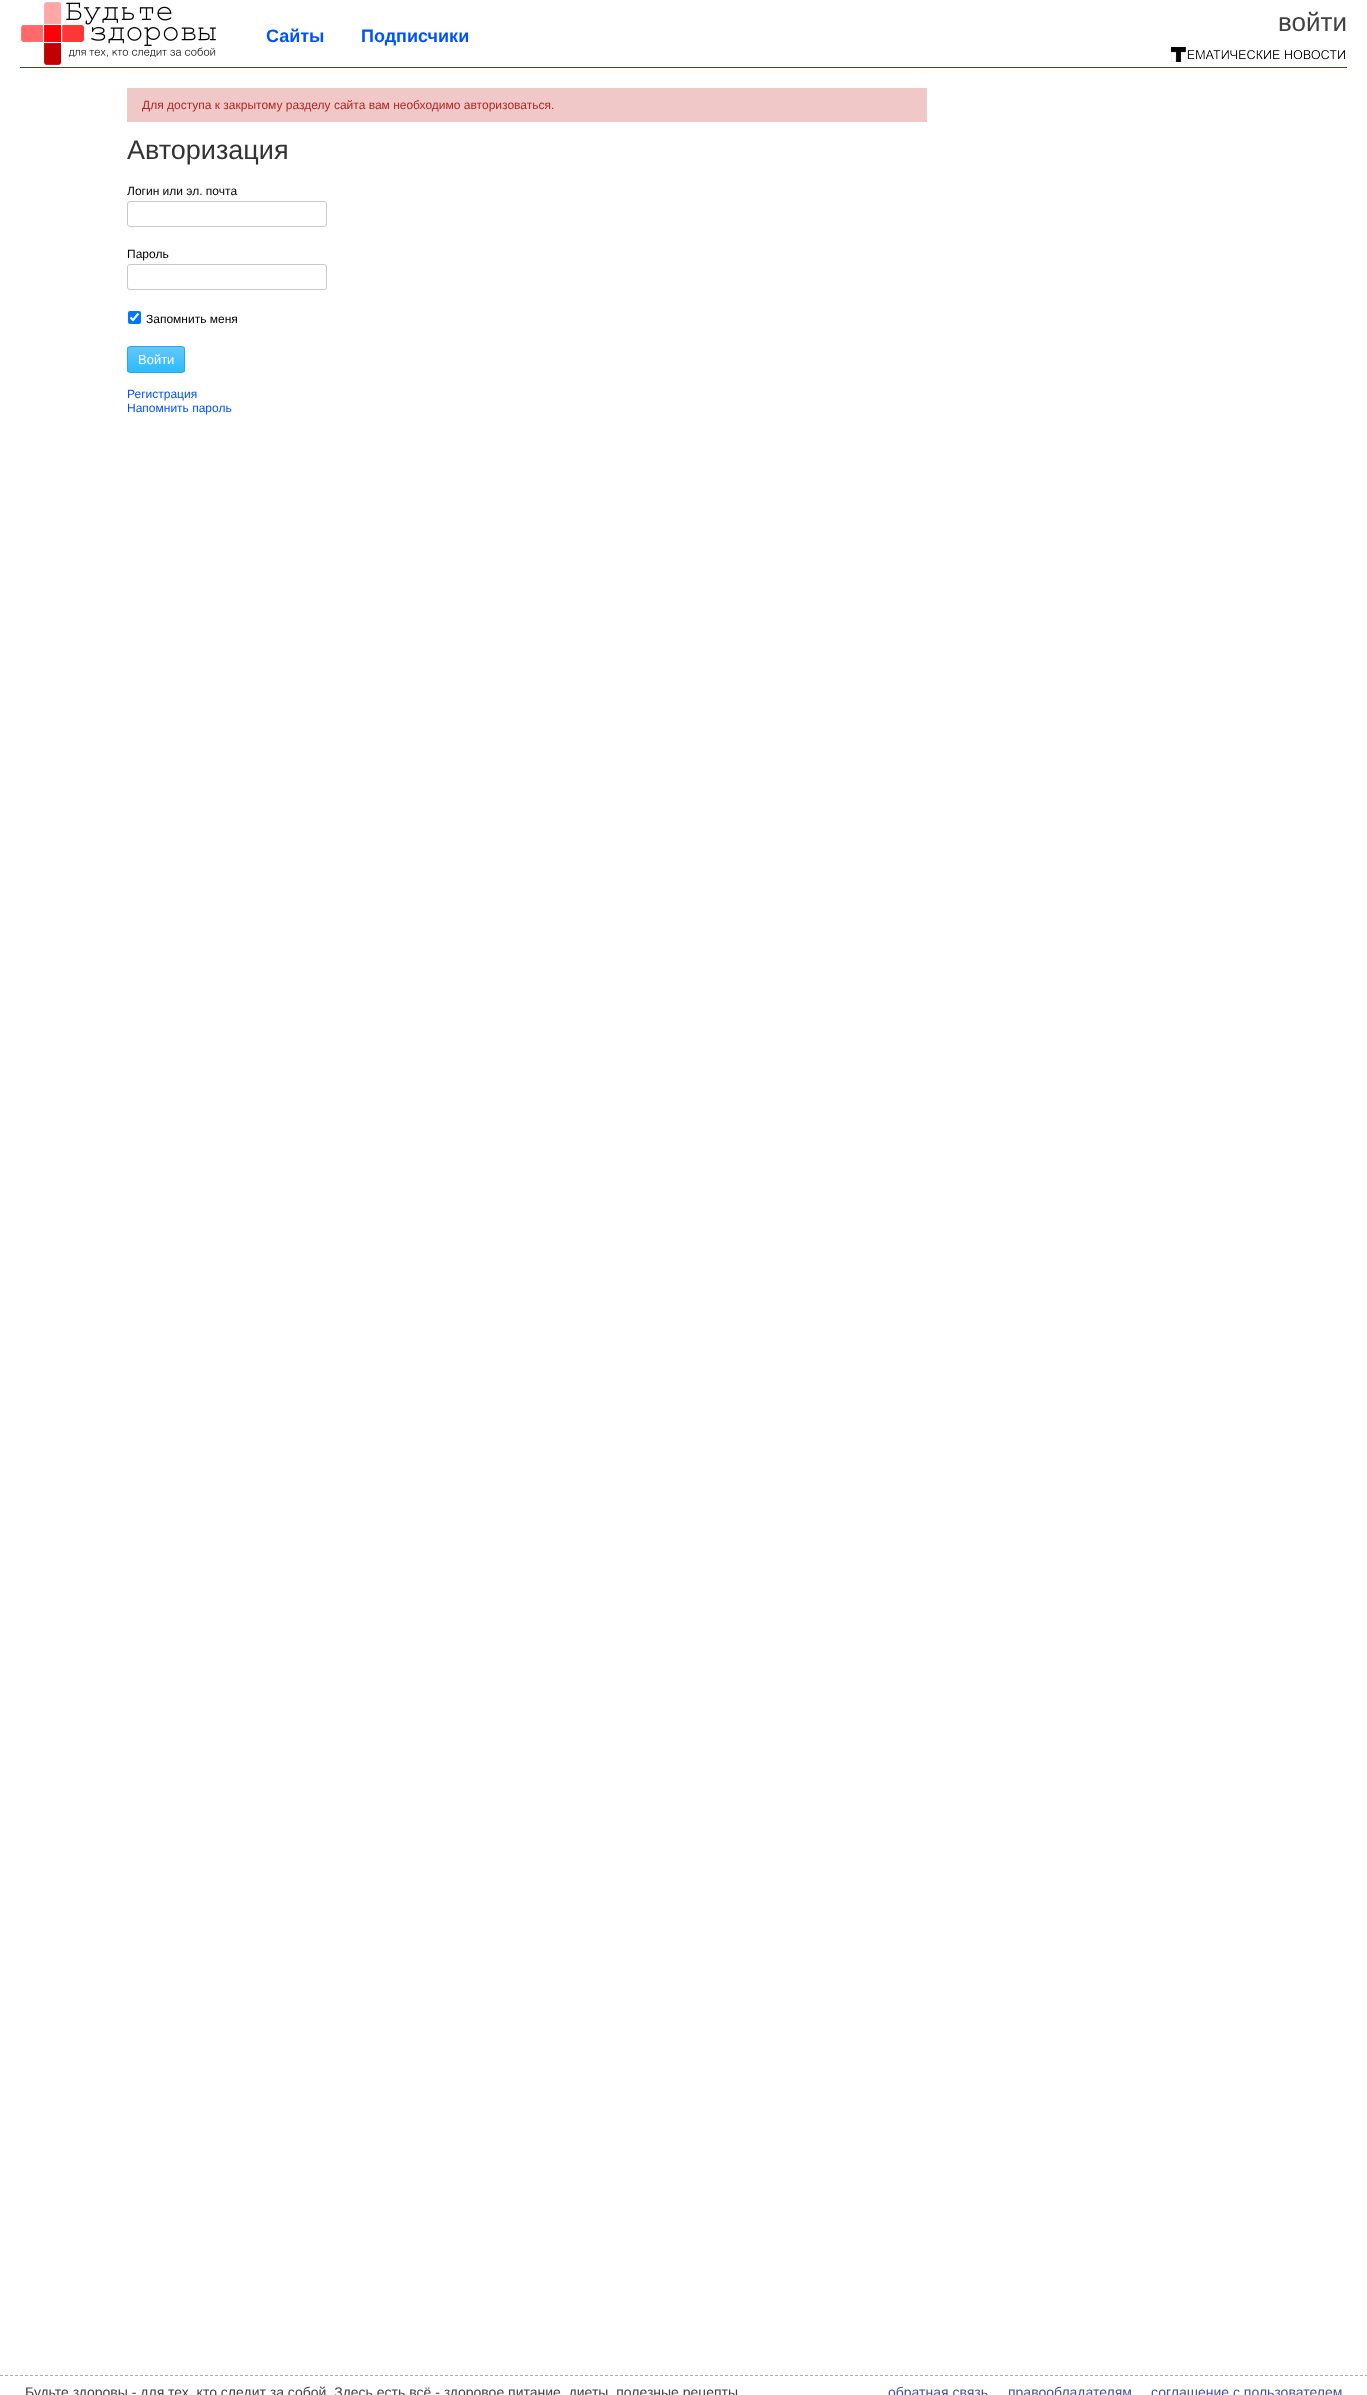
<!DOCTYPE html>
<meta charset="utf-8">
<style>body { margin: 0 } canvas { display: block }</style>
<canvas id="canvas" width="1367" height="2395"></canvas>
<img id="img1" src="images/1.png" hidden>
<img id="img2" src="images/2.png" hidden>
<script>
window.onload = function () {
    const canvas = document.getElementById('canvas');
    const context = canvas.getContext('2d');
    context.miterLimit = 4;
    context.fontKerning = 'normal';
    let gradient;

    context.fillStyle = 'rgb(255, 255, 255)';
    context.fillRect(0, 0, 1367, 2395);
    context.fillStyle = 'rgb(46, 70, 122)';
    context.fillRect(20, 67, 1327, 1);
    context.drawImage(document.getElementById('img1'), 20, 1, 196, 65);
    context.drawImage(document.getElementById('img2'), 1171, 47, 174, 15);
    context.fillStyle = 'rgb(240, 200, 200)';
    context.fillRect(127, 88, 800, 34);
    context.beginPath();
    context.roundRect(127.5, 201.5, 199, 25, 2.5);
    context.strokeStyle = 'rgb(201, 201, 201)';
    context.stroke();
    context.beginPath();
    context.roundRect(127.5, 264.5, 199, 25, 2.5);
    context.stroke();
    context.fillStyle = 'rgb(0, 117, 255)';
    context.beginPath();
    context.roundRect(128, 311, 13, 13, 2);
    context.fill();
    context.beginPath();
    context.moveTo(130.5, 317.5);
    context.lineTo(133, 320);
    context.lineTo(138.5, 313.5);
    context.strokeStyle = 'rgb(255, 255, 255)';
    context.lineWidth = 2.1;
    context.stroke();
    context.save();
    context.beginPath();
    context.roundRect(127, 346, 58, 27, 3);
    context.clip();
    gradient = context.createLinearGradient(156, 347, 156, 372);
    gradient.addColorStop(0, 'rgb(102, 198, 255)');
    gradient.addColorStop(1, 'rgb(42, 188, 254)');
    context.fillStyle = gradient;
    context.fillRect(127, 347, 58, 25);
    context.restore();
    context.beginPath();
    context.roundRect(127.5, 346.5, 57, 26, 2.5);
    context.strokeStyle = 'rgb(39, 172, 232)';
    context.lineWidth = 1;
    context.stroke();
    context.beginPath();
    context.moveTo(0, 2375.5);
    context.lineTo(1367, 2375.5);
    context.strokeStyle = 'rgb(176, 176, 176)';
    context.setLineDash([3, 2]);
    context.stroke();
    context.font = '26px Liberation Sans';
    context.fillStyle = 'rgb(66, 66, 66)';
    context.fillText('войти', 1278, 31);
    context.font = 'bold 18px Liberation Sans';
    context.fillStyle = 'rgb(0, 83, 249)';
    context.fillText('Сайты', 266, 42);
    context.fillText('Подписчики', 361, 42);
    context.font = '12px Liberation Sans';
    context.fillStyle = 'rgb(178, 38, 38)';
    context.fillText('Для доступа к закрытому разделу сайта вам необходимо авторизоваться.', 142, 109);
    context.font = '27px Liberation Sans';
    context.fillStyle = 'rgb(51, 51, 51)';
    context.fillText('Авторизация', 127, 159);
    context.font = '12px Liberation Sans';
    context.fillStyle = 'rgb(0, 0, 0)';
    context.fillText('Логин или эл. почта', 127, 195);
    context.fillText('Пароль', 127, 258);
    context.fillText('Запомнить меня', 146, 323);
    context.font = '13px Liberation Sans';
    context.fillStyle = 'rgb(255, 255, 255)';
    context.fillText('Войти', 138, 364);
    context.font = '12px Liberation Sans';
    context.fillStyle = 'rgb(0, 83, 249)';
    context.fillText('Регистрация', 127, 398);
    context.fillText('Напомнить пароль', 127, 412);
    context.font = '14px Liberation Sans';
    context.fillStyle = 'rgb(66, 66, 66)';
    context.fillText('Будьте здоровы - для тех, кто следит за собой. Здесь есть всё - здоровое питание, диеты, полезные рецепты', 25, 2397);
    context.fillStyle = 'rgb(72, 78, 149)';
    context.fillText('обратная связь', 888, 2397);
    context.fillText('правообладателям', 1008, 2397);
    context.fillText('соглашение с пользователем', 1151, 2397);
};
</script>
